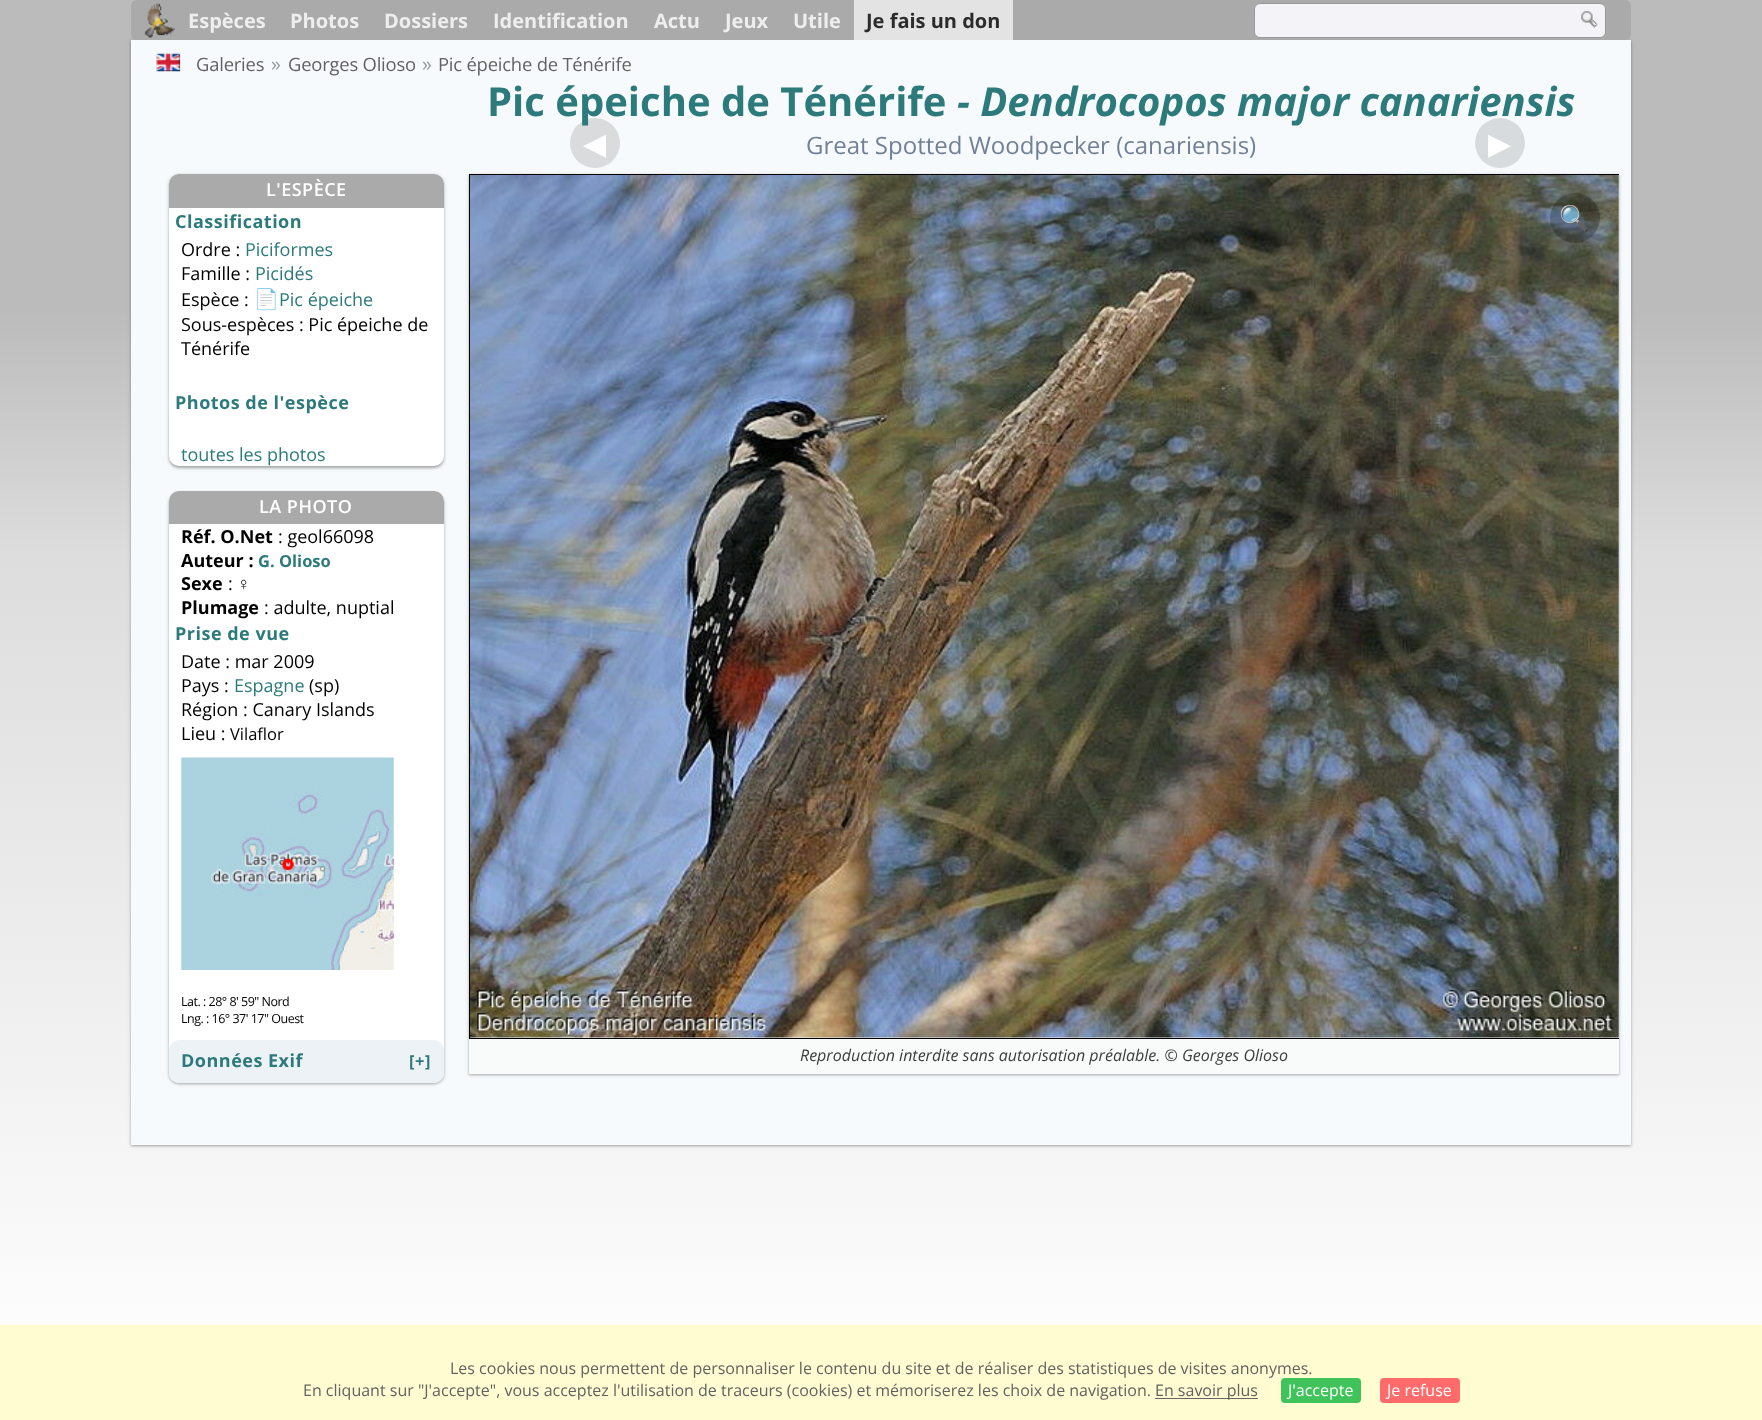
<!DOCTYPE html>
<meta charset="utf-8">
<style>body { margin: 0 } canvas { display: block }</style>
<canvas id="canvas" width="1762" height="1420"></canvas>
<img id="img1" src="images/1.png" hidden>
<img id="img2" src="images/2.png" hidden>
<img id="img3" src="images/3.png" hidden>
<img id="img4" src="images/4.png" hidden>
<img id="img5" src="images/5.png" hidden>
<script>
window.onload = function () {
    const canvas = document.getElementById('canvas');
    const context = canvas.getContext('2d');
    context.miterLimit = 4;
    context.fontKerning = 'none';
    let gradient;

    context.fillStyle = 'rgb(255, 255, 255)';
    context.fillRect(0, 0, 1762, 1420);
    gradient = context.createLinearGradient(881, 0, 881, 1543);
    gradient.addColorStop(0, 'rgb(187, 187, 187)');
    gradient.addColorStop(0.2, 'rgb(187, 187, 187)');
    gradient.addColorStop(0.36, 'rgb(221, 221, 221)');
    gradient.addColorStop(0.9, 'rgb(255, 255, 255)');
    gradient.addColorStop(1, 'rgb(255, 255, 255)');
    context.fillStyle = gradient;
    context.fillRect(0, 0, 1762, 1325);
    context.fillStyle = 'rgba(0, 0, 0, 0.24)';
    context.filter = 'blur(1px)';
    context.beginPath();
    context.rect(131, 41, 1500, 1105);
    context.fill();
    context.filter = 'none';
    context.fillStyle = 'rgba(0, 0, 0, 0.12)';
    context.filter = 'blur(2px)';
    context.beginPath();
    context.rect(131, 41, 1500, 1105);
    context.fill();
    context.filter = 'none';
    context.fillStyle = 'rgb(170, 170, 170)';
    context.beginPath();
    context.roundRect(131, 0, 1500, 40, 6);
    context.fill();
    context.drawImage(document.getElementById('img1'), 144, 3, 31, 35);
    context.fillStyle = 'rgb(227, 227, 227)';
    context.fillRect(854, 0, 159, 40);
    context.fillStyle = 'rgb(243, 243, 248)';
    context.beginPath();
    context.roundRect(1254.5, 3.5, 351, 34, 5.5);
    context.fill();
    context.strokeStyle = 'rgb(153, 153, 153)';
    context.stroke();
    context.drawImage(document.getElementById('img2'), 1581, 11, 17, 17);
    context.fillStyle = 'rgb(247, 250, 252)';
    context.fillRect(131, 40, 1500, 1105);
    context.drawImage(document.getElementById('img3'), 156, 52, 25, 20);
    context.fillStyle = 'rgba(0, 0, 0, 0.24)';
    context.filter = 'blur(1px)';
    context.beginPath();
    context.roundRect(169, 175, 275, 293, 10);
    context.fill();
    context.filter = 'none';
    context.fillStyle = 'rgba(0, 0, 0, 0.12)';
    context.filter = 'blur(2px)';
    context.beginPath();
    context.roundRect(169, 175, 275, 293, 10);
    context.fill();
    context.filter = 'none';
    context.fillStyle = 'rgb(255, 255, 255)';
    context.beginPath();
    context.roundRect(169, 174, 275, 292, 10);
    context.fill();
    context.fillStyle = 'rgb(170, 170, 170)';
    context.beginPath();
    context.roundRect(169, 174, 275, 34, [10, 10, 0, 0]);
    context.fill();
    context.fillStyle = 'rgba(0, 0, 0, 0.24)';
    context.filter = 'blur(1px)';
    context.beginPath();
    context.roundRect(169, 493, 275, 591, 10);
    context.fill();
    context.filter = 'none';
    context.fillStyle = 'rgba(0, 0, 0, 0.12)';
    context.filter = 'blur(2px)';
    context.beginPath();
    context.roundRect(169, 493, 275, 591, 10);
    context.fill();
    context.filter = 'none';
    context.fillStyle = 'rgb(255, 255, 255)';
    context.beginPath();
    context.roundRect(169, 491, 275, 592, 10);
    context.fill();
    context.fillStyle = 'rgb(170, 170, 170)';
    context.beginPath();
    context.roundRect(169, 491, 275, 33, [10, 10, 0, 0]);
    context.fill();
    context.drawImage(document.getElementById('img4'), 181, 757, 213, 213);
    context.fillStyle = 'rgb(237, 242, 247)';
    context.beginPath();
    context.roundRect(169, 1040, 275, 43, 10);
    context.fill();
    context.fillStyle = 'rgba(0, 0, 0, 0.12)';
    context.beginPath();
    context.arc(595, 143, 25, 0, 2 * Math.PI);
    context.fill();
    context.save();
    context.beginPath();
    context.moveTo(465, 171);
    context.lineTo(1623, 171);
    context.lineTo(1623, 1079);
    context.lineTo(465, 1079);
    context.closePath();
    context.moveTo(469, 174);
    context.lineTo(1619, 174);
    context.lineTo(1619, 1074);
    context.lineTo(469, 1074);
    context.closePath();
    context.clip('evenodd');
    context.fillStyle = 'rgba(0, 0, 0, 0.24)';
    context.filter = 'blur(1px)';
    context.beginPath();
    context.rect(469, 175, 1150, 900);
    context.fill();
    context.filter = 'none';
    context.restore();
    context.save();
    context.beginPath();
    context.moveTo(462, 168);
    context.lineTo(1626, 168);
    context.lineTo(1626, 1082);
    context.lineTo(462, 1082);
    context.closePath();
    context.moveTo(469, 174);
    context.lineTo(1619, 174);
    context.lineTo(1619, 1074);
    context.lineTo(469, 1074);
    context.closePath();
    context.clip('evenodd');
    context.filter = 'blur(2px)';
    context.beginPath();
    context.rect(469, 175, 1150, 900);
    context.fill();
    context.filter = 'none';
    context.restore();
    context.save();
    context.beginPath();
    context.rect(469, 174, 1150, 900);
    context.clip();
    context.strokeStyle = 'rgb(0, 0, 0)';
    context.strokeRect(469.5, 174.5, 1151, 864);
    context.restore();
    context.drawImage(document.getElementById('img5'), 470, 175, 1149, 863);
    context.fillStyle = 'rgba(0, 0, 0, 0.24)';
    context.beginPath();
    context.arc(1575, 218, 25, 0, 2 * Math.PI);
    context.fill();
    context.fillStyle = 'rgba(250, 250, 250, 0.75)';
    context.fillRect(469, 1039, 1150, 35);
    context.fillStyle = 'rgb(255, 252, 209)';
    context.fillRect(0, 1325, 1762, 95);
    context.fillStyle = 'rgb(102, 102, 102)';
    context.fillRect(1155, 1398, 103, 1);
    context.fillStyle = 'rgb(63, 195, 90)';
    context.beginPath();
    context.roundRect(1281, 1378, 80, 25, 4);
    context.fill();
    context.fillStyle = 'rgb(255, 107, 107)';
    context.beginPath();
    context.roundRect(1380, 1378, 80, 25, 4);
    context.fill();
    context.font = 'bold 20px Open Sans';
    context.fillStyle = 'rgb(238, 238, 238)';
    context.fillText('Espèces', 188, 28);
    context.fillText('Photos', 290, 28);
    context.fillText('Dossiers', 384, 28);
    context.fillText('Identification', 493, 28);
    context.fillText('Actu', 654, 28);
    context.fillText('Jeux', 725, 28);
    context.fillText('Utile', 793, 28);
    context.fillStyle = 'rgb(44, 44, 44)';
    context.fillText('Je fais un don', 866, 28);
    context.letterSpacing = '-0.2px';
    context.font = '18.4px Open Sans';
    context.fillStyle = 'rgb(98, 98, 98)';
    context.fillText('Galeries', 196, 71);
    context.letterSpacing = '0px';
    context.font = '20px Open Sans';
    context.fillStyle = 'rgb(149, 155, 158)';
    context.fillText('»', 271, 71);
    context.letterSpacing = '-0.2px';
    context.font = '18.4px Open Sans';
    context.fillStyle = 'rgb(98, 98, 98)';
    context.fillText('Georges Olioso', 288, 71);
    context.letterSpacing = '0px';
    context.font = '20px Open Sans';
    context.fillStyle = 'rgb(149, 155, 158)';
    context.fillText('»', 422, 71);
    context.letterSpacing = '-0.2px';
    context.font = '18.4px Open Sans';
    context.fillStyle = 'rgb(98, 98, 98)';
    context.fillText('Pic épeiche de Ténérife', 438, 71);
    context.letterSpacing = '0px';
    context.font = 'bold 40px Open Sans';
    context.fillStyle = 'rgb(44, 122, 123)';
    context.fillText('Pic épeiche de Ténérife', 487, 116);
    context.font = 'italic bold 40px Open Sans';
    context.fillText('- Dendrocopos major canariensis', 957, 116);
    context.font = '24px Open Sans';
    context.fillStyle = 'rgb(113, 128, 150)';
    context.fillText('Great Spotted Woodpecker (canariensis)', 806, 154);
    context.letterSpacing = '0.5px';
    context.font = '600 18px Open Sans';
    context.fillStyle = 'rgb(255, 255, 255)';
    context.fillText('L\'ESPÈCE', 266, 196);
    context.font = 'bold 18px Open Sans';
    context.fillStyle = 'rgb(44, 122, 123)';
    context.fillText('Classification', 175, 228);
    context.letterSpacing = '0px';
    context.font = '18px Open Sans';
    context.fillStyle = 'rgb(0, 0, 0)';
    context.fillText('Ordre :', 181, 256);
    context.fillStyle = 'rgb(44, 122, 123)';
    context.fillText('Piciformes', 245, 256);
    context.fillStyle = 'rgb(0, 0, 0)';
    context.fillText('Famille :', 181, 280);
    context.fillStyle = 'rgb(44, 122, 123)';
    context.fillText('Picidés', 255, 280);
    context.fillStyle = 'rgb(0, 0, 0)';
    context.fillText('Espèce :', 181, 306);
    context.font = '20px Noto Color Emoji';
    context.fillStyle = 'rgb(44, 122, 123)';
    context.fillText('📄', 254, 306);
    context.font = '18px Open Sans';
    context.fillText('Pic épeiche', 279, 306);
    context.fillStyle = 'rgb(0, 0, 0)';
    context.fillText('Sous-espèces : Pic épeiche de', 181, 331);
    context.fillText('Ténérife', 181, 355);
    context.letterSpacing = '0.5px';
    context.font = 'bold 18px Open Sans';
    context.fillStyle = 'rgb(44, 122, 123)';
    context.fillText('Photos de l\'espèce', 175, 409);
    context.letterSpacing = '0px';
    context.font = '18px Open Sans';
    context.fillText('toutes les photos', 181, 461);
    context.letterSpacing = '0.5px';
    context.font = '600 18px Open Sans';
    context.fillStyle = 'rgb(255, 255, 255)';
    context.fillText('LA PHOTO', 259, 513);
    context.letterSpacing = '0px';
    context.font = 'bold 18px Open Sans';
    context.fillStyle = 'rgb(0, 0, 0)';
    context.fillText('Réf. O.Net', 181, 543);
    context.font = '18px Open Sans';
    context.fillText(': geol66098', 278, 543);
    context.font = 'bold 18px Open Sans';
    context.fillText('Auteur :', 181, 567);
    context.font = 'bold 16.5px Open Sans';
    context.fillStyle = 'rgb(44, 122, 123)';
    context.fillText('G. Olioso', 258, 567);
    context.font = 'bold 18px Open Sans';
    context.fillStyle = 'rgb(0, 0, 0)';
    context.fillText('Sexe', 181, 590);
    context.font = '18px Open Sans';
    context.fillText(':', 228, 590);
    context.font = '18px Liberation Sans';
    context.fillText('♀', 237, 590);
    context.font = 'bold 18px Open Sans';
    context.fillText('Plumage', 181, 614);
    context.font = '18px Open Sans';
    context.fillText(': adulte, nuptial', 264, 614);
    context.letterSpacing = '0.5px';
    context.font = 'bold 18px Open Sans';
    context.fillStyle = 'rgb(44, 122, 123)';
    context.fillText('Prise de vue', 175, 640);
    context.letterSpacing = '0px';
    context.font = '18px Open Sans';
    context.fillStyle = 'rgb(0, 0, 0)';
    context.fillText('Date : mar 2009', 181, 668);
    context.fillText('Pays :', 181, 692);
    context.fillStyle = 'rgb(44, 122, 123)';
    context.fillText('Espagne', 234, 692);
    context.fillStyle = 'rgb(0, 0, 0)';
    context.fillText('(sp)', 309, 692);
    context.fillText('Région : Canary Islands', 181, 716);
    context.fillText('Lieu :', 181, 740);
    context.font = '16.5px Open Sans';
    context.fillText('Vilaflor', 230, 740);
    context.letterSpacing = '-0.5px';
    context.font = '12.5px Open Sans';
    context.fillText('Lat. : 28° 8\' 59\'\' Nord', 181, 1006);
    context.fillText('Lng. : 16° 37\' 17\'\' Ouest', 181, 1023);
    context.letterSpacing = '0.5px';
    context.font = 'bold 18px Open Sans';
    context.fillStyle = 'rgb(44, 122, 123)';
    context.fillText('Données Exif', 181, 1067);
    context.font = 'bold 16.5px Open Sans';
    context.fillText('[+]', 409, 1067);
    context.letterSpacing = '0px';
    context.font = '30px DejaVu Sans';
    context.fillStyle = 'rgb(255, 255, 255)';
    context.fillText('◀', 583, 154);
    context.fillStyle = 'rgb(216, 219, 221)';
    context.beginPath();
    context.arc(1500, 143, 25, 0, 2 * Math.PI);
    context.fill();
    context.fillStyle = 'rgb(255, 255, 255)';
    context.fillText('▶', 1488, 154);
    context.font = '25px Noto Color Emoji';
    context.fillStyle = 'rgb(149, 155, 158)';
    context.fillText('🔍', 1559, 227);
    context.font = 'italic 16px Open Sans';
    context.fillStyle = 'rgb(61, 61, 61)';
    context.fillText('Reproduction interdite sans autorisation préalable. © Georges Olioso', 800, 1061);
    context.font = '16px Open Sans';
    context.fillStyle = 'rgb(98, 98, 98)';
    context.fillText('Les cookies nous permettent de personnaliser le contenu du site et de réaliser des statistiques de visites anonymes.', 450, 1374);
    context.fillText('En cliquant sur "J\'accepte", vous acceptez l\'utilisation de traceurs (cookies) et mémoriserez les choix de navigation.', 303, 1396);
    context.fillText('En savoir plus', 1155, 1396);
    context.fillStyle = 'rgb(255, 255, 255)';
    context.fillText('J\'accepte', 1288, 1396);
    context.fillText('Je refuse', 1387, 1396);
};
</script>
